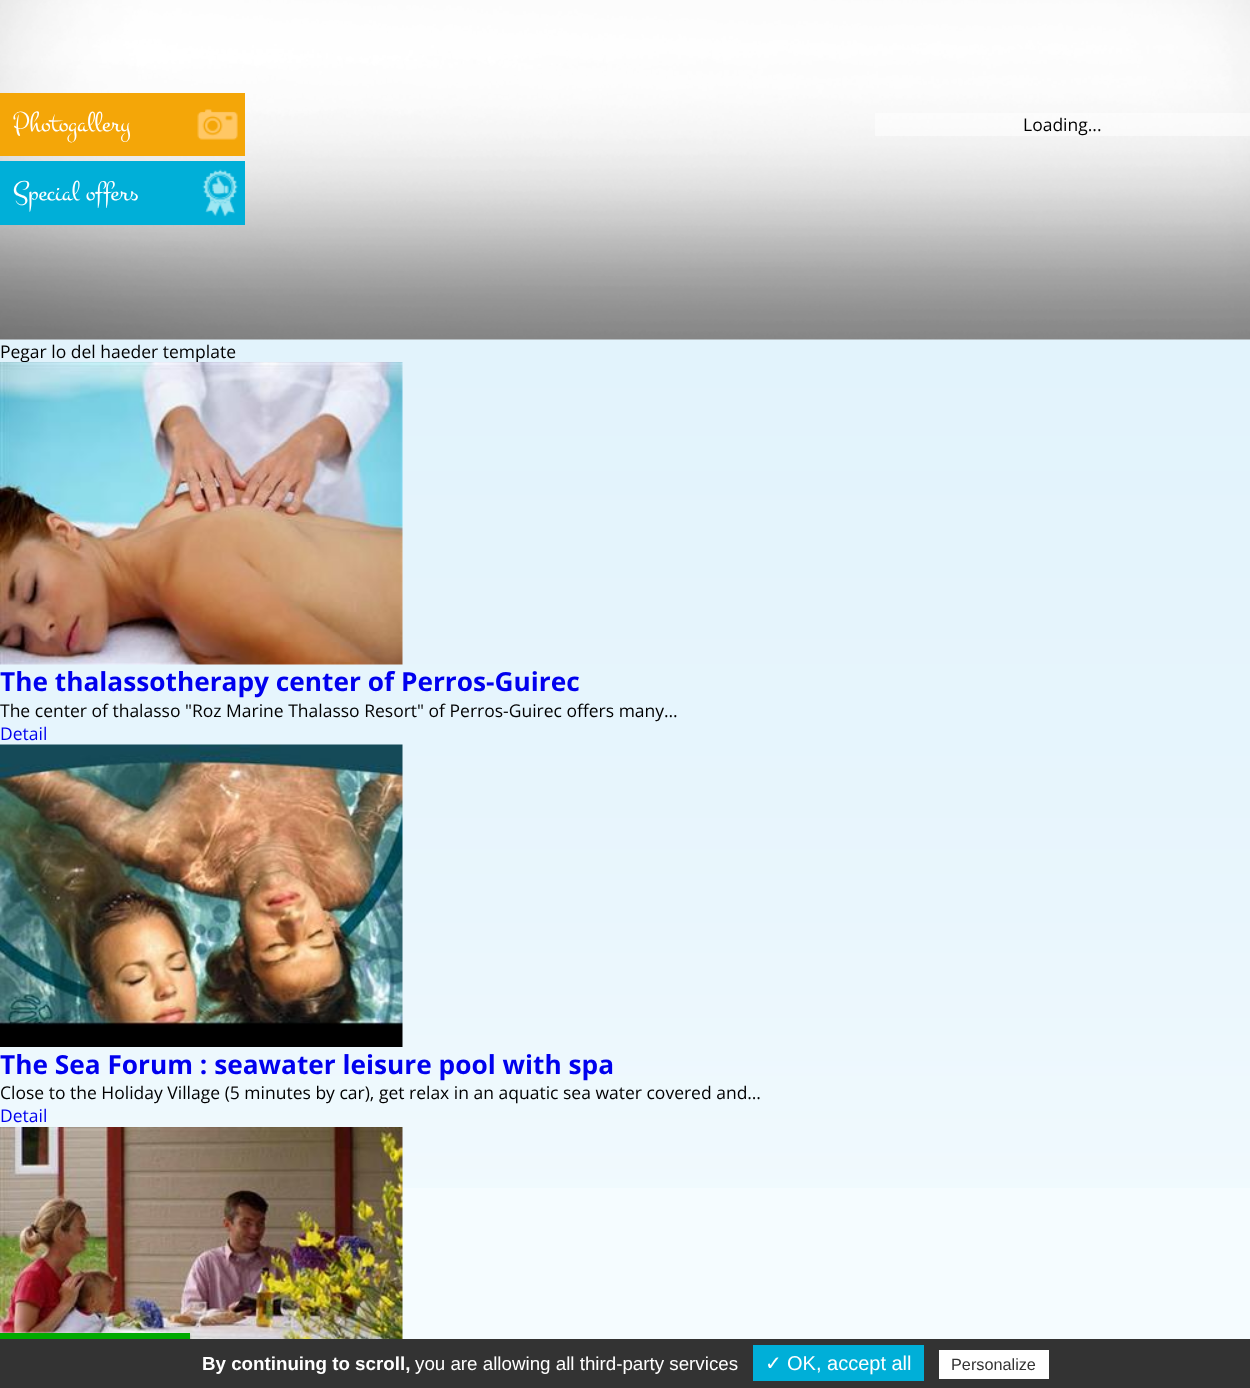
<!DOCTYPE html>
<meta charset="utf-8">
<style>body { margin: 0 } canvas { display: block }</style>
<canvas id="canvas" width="1250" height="1388"></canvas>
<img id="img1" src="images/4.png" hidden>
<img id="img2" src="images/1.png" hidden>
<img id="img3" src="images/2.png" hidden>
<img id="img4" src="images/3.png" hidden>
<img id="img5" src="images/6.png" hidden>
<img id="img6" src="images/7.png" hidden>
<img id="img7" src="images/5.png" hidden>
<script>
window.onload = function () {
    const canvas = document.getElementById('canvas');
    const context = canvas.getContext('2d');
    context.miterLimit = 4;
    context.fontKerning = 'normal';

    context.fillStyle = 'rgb(255, 255, 255)';
    context.fillRect(0, 0, 1250, 1388);
    context.drawImage(document.getElementById('img1'), 0, 339, 1250, 849);
    context.drawImage(document.getElementById('img2'), 0, 0, 1250, 340);
    context.fillStyle = 'rgb(244, 166, 8)';
    context.fillRect(0, 93, 245, 63);
    context.drawImage(document.getElementById('img3'), 197, 109, 41, 31);
    context.fillStyle = 'rgb(0, 175, 216)';
    context.fillRect(0, 161, 245, 64);
    context.drawImage(document.getElementById('img4'), 202, 169, 36, 48);
    context.fillStyle = 'rgba(255, 255, 255, 0.5)';
    context.fillRect(875, 113, 375, 23);
    context.fillStyle = 'rgb(245, 252, 255)';
    context.fillRect(402, 1188, 848, 151);
    context.drawImage(document.getElementById('img5'), 0, 744, 403, 303);
    context.drawImage(document.getElementById('img6'), 0, 1127, 403, 212);
    context.fillStyle = 'rgb(85, 85, 85)';
    context.filter = 'blur(1px)';
    context.beginPath();
    context.rect(0, 1334, 190, 6);
    context.fill();
    context.filter = 'none';
    context.fillStyle = 'rgb(255, 255, 255)';
    context.filter = 'blur(1px)';
    context.beginPath();
    context.rect(0, 1333, 190, 6);
    context.fill();
    context.filter = 'none';
    context.fillStyle = 'rgb(0, 170, 0)';
    context.fillRect(0, 1333, 190, 6);
    context.fillStyle = 'rgb(51, 51, 51)';
    context.fillRect(0, 1339, 1250, 49);
    context.fillStyle = 'rgb(0, 175, 216)';
    context.fillRect(753, 1345, 171, 36);
    context.fillStyle = 'rgb(255, 255, 255)';
    context.fillRect(939, 1350, 110, 29);
    context.font = '28.75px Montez';
    context.fillText('Photogallery', 13, 131);
    context.fillText('Special offers', 13, 200);
    context.font = '17.5px Open Sans';
    context.fillStyle = 'rgb(0, 0, 0)';
    context.fillText('Loading...', 1023, 131);
    context.fillText('Pegar lo del haeder template', 0, 358);
    context.drawImage(document.getElementById('img7'), 0, 362, 403, 303);
    context.font = 'bold 26.25px Open Sans';
    context.fillStyle = 'rgb(0, 0, 238)';
    context.fillText('The thalassotherapy center of Perros-Guirec', 0, 691);
    context.font = '17.5px Open Sans';
    context.fillStyle = 'rgb(0, 0, 0)';
    context.fillText('The center of thalasso "Roz Marine Thalasso Resort" of Perros-Guirec offers many…', 0, 717);
    context.fillStyle = 'rgb(0, 0, 238)';
    context.fillText('Detail', 0, 740);
    context.font = 'bold 26.25px Open Sans';
    context.fillText('The Sea Forum : seawater leisure pool with spa', 0, 1074);
    context.font = '17.5px Open Sans';
    context.fillStyle = 'rgb(0, 0, 0)';
    context.fillText('Close to the Holiday Village (5 minutes by car), get relax in an aquatic sea water covered and…', 0, 1099);
    context.fillStyle = 'rgb(0, 0, 238)';
    context.fillText('Detail', 0, 1122);
    context.font = 'bold 18.75px Liberation Sans';
    context.fillStyle = 'rgb(255, 255, 255)';
    context.fillText('By continuing to scroll,', 202, 1370);
    context.font = '18.75px Liberation Sans';
    context.fillText('you are allowing all third-party services', 415, 1370);
    context.font = '20px DejaVu Sans';
    context.fillText('✓', 765, 1370);
    context.font = '20px Liberation Sans';
    context.fillText('OK, accept all', 787, 1370);
    context.font = '16.25px Liberation Sans';
    context.fillStyle = 'rgb(51, 51, 51)';
    context.fillText('Personalize', 951, 1370);
};
</script>
